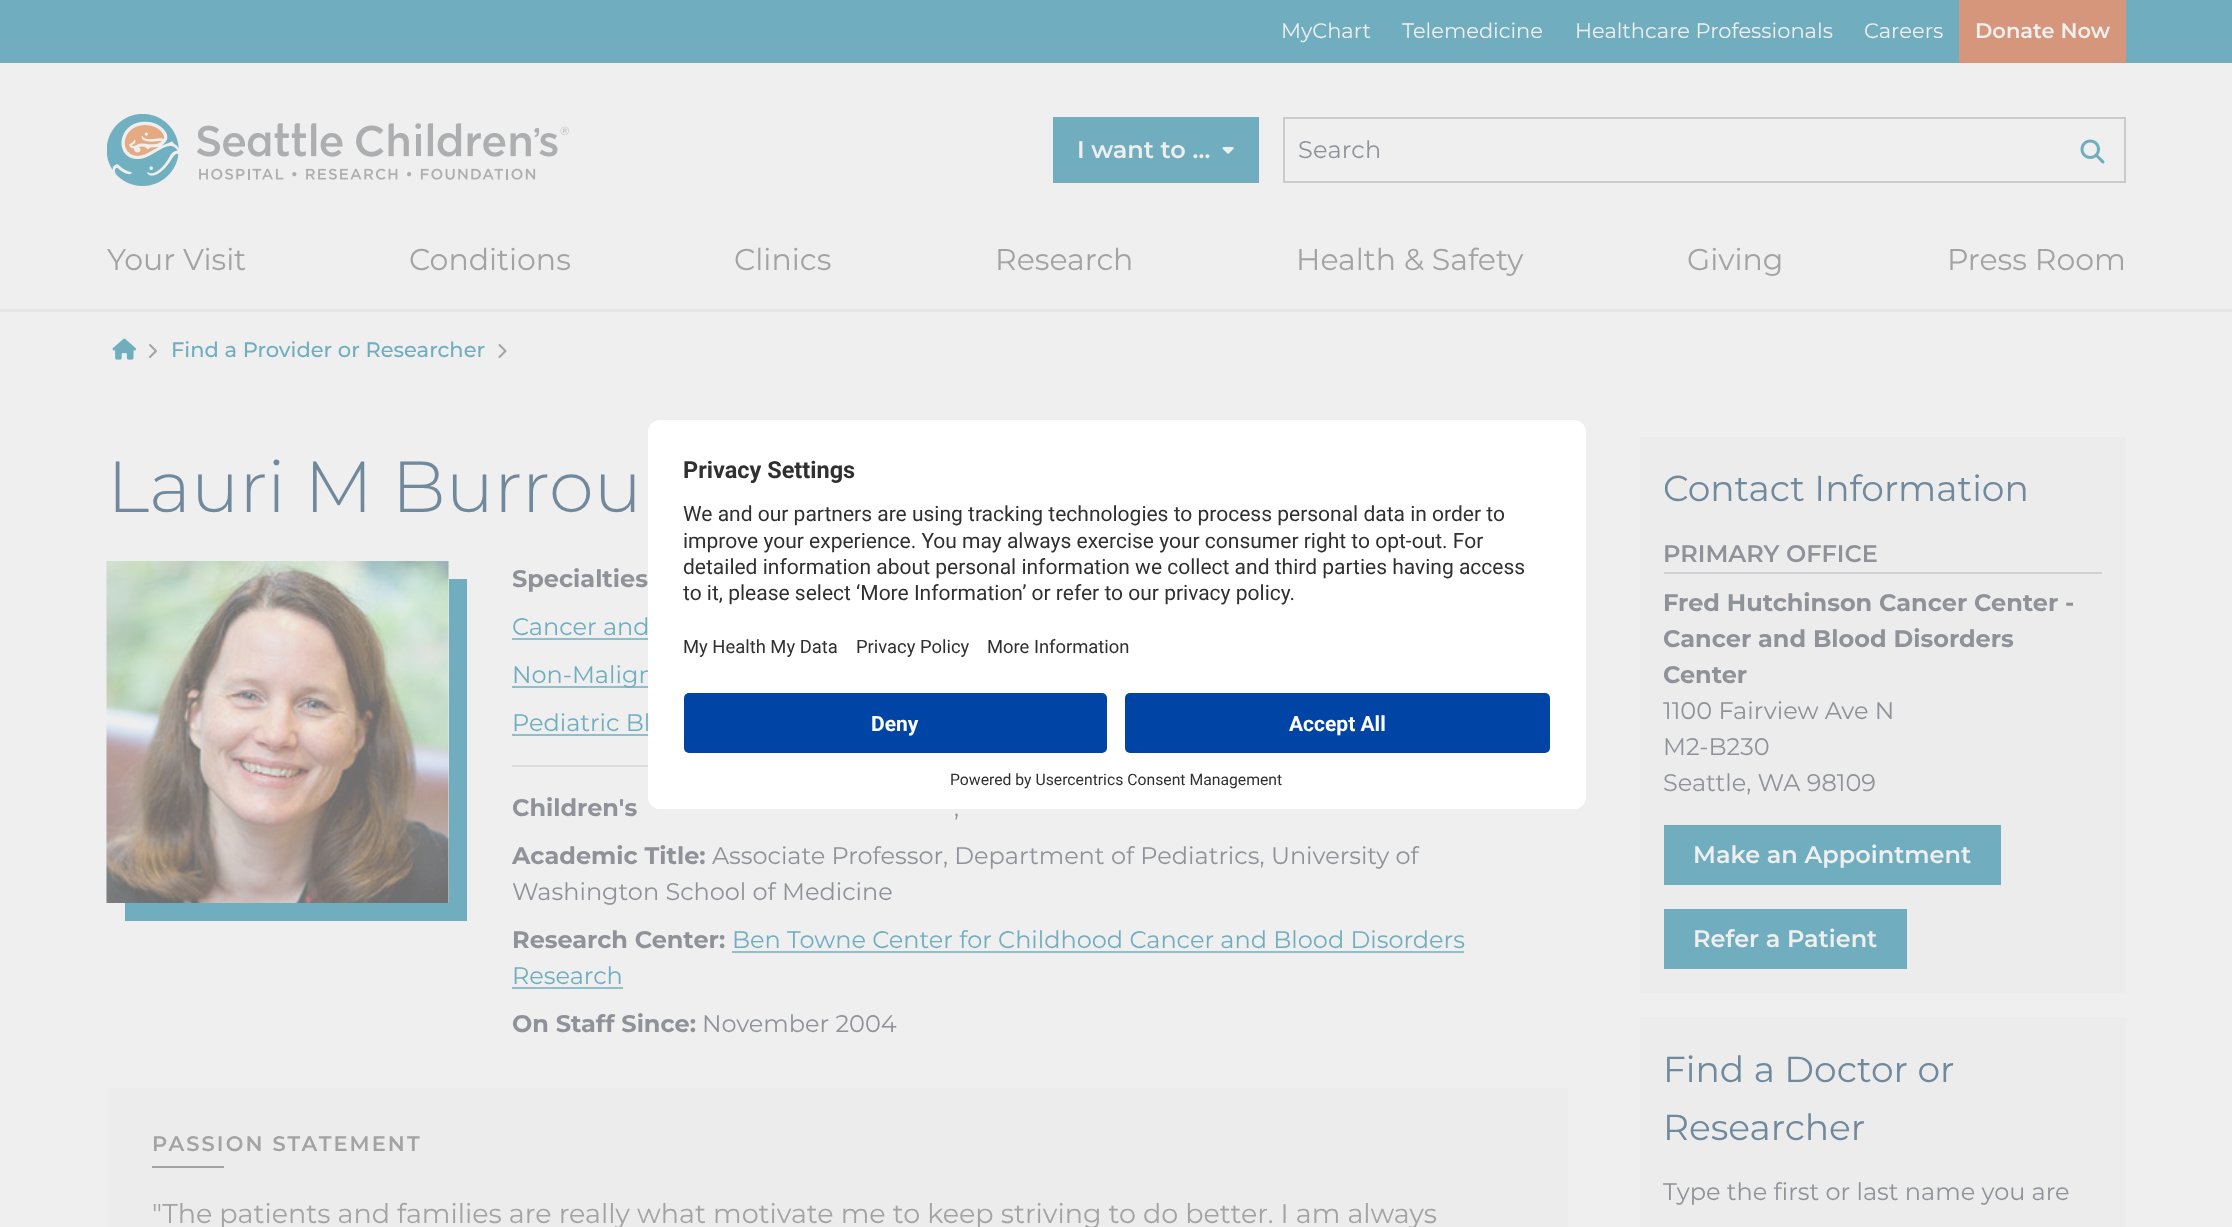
<!DOCTYPE html>
<meta charset="utf-8">
<style>body { margin: 0 } canvas { display: block }</style>
<canvas id="canvas" width="2232" height="1227"></canvas>
<img id="img1" src="images/1.png" hidden>
<img id="img2" src="images/2.png" hidden>
<img id="img3" src="images/3.png" hidden>
<img id="img4" src="images/4.png" hidden>
<img id="img5" src="images/5.png" hidden>
<script>
window.onload = function () {
    const canvas = document.getElementById('canvas');
    const context = canvas.getContext('2d');
    context.miterLimit = 4;
    context.fontKerning = 'normal';

    context.fillStyle = 'rgb(239, 239, 239)';
    context.fillRect(0, 0, 2232, 1227);
    context.fillStyle = 'rgb(230, 230, 231)';
    context.fillRect(0, 309, 2232, 3);
    context.fillStyle = 'rgb(112, 174, 191)';
    context.fillRect(0, 0, 2232, 63);
    context.fillStyle = 'rgb(214, 150, 123)';
    context.fillRect(1959, 0, 167, 63);
    context.drawImage(document.getElementById('img1'), 107, 114, 462, 72);
    context.fillStyle = 'rgb(112, 174, 191)';
    context.fillRect(1053, 117, 206, 66);
    context.drawImage(document.getElementById('img2'), 1222, 147, 12, 7);
    context.strokeStyle = 'rgb(201, 202, 204)';
    context.lineWidth = 2;
    context.strokeRect(1284, 118, 841, 64);
    context.drawImage(document.getElementById('img3'), 2080, 139, 25, 25);
    context.drawImage(document.getElementById('img4'), 112, 338, 25, 22);
    context.beginPath();
    context.moveTo(150, 345);
    context.lineTo(156, 351);
    context.lineTo(150, 357);
    context.strokeStyle = 'rgb(163, 163, 163)';
    context.lineCap = 'round';
    context.lineJoin = 'round';
    context.stroke();
    context.beginPath();
    context.moveTo(499.5, 345);
    context.lineTo(505.5, 351);
    context.lineTo(499.5, 357);
    context.stroke();
    context.fillRect(125, 579, 342, 342);
    context.fillStyle = 'rgb(236, 236, 236)';
    context.fillRect(448, 561, 1, 342);
    context.drawImage(document.getElementById('img5'), 106, 561, 343, 342);
    context.fillStyle = 'rgb(144, 190, 203)';
    context.fillRect(512, 638, 136, 2);
    context.fillRect(512, 686, 136, 2);
    context.fillRect(512, 734, 136, 2);
    context.fillStyle = 'rgb(220, 221, 222)';
    context.fillRect(512, 765, 136, 2);
    context.fillStyle = 'rgb(144, 190, 203)';
    context.fillRect(732, 951, 732, 2);
    context.fillRect(512, 987, 111, 2);
    context.fillStyle = 'rgb(236, 236, 236)';
    context.fillRect(107, 1088, 1461, 139);
    context.fillStyle = 'rgb(163, 163, 163)';
    context.fillRect(152, 1166, 72, 2);
    context.fillStyle = 'rgb(236, 236, 236)';
    context.fillRect(1640, 437, 486, 556);
    context.fillStyle = 'rgb(208, 209, 211)';
    context.fillRect(1664, 572, 438, 2);
    context.fillStyle = 'rgb(112, 174, 191)';
    context.fillRect(1664, 825, 337, 60);
    context.fillRect(1664, 909, 243, 60);
    context.fillStyle = 'rgb(236, 236, 236)';
    context.fillRect(1640, 1017, 486, 210);
    context.font = '21px Montserrat';
    context.fillStyle = 'rgb(239, 239, 239)';
    context.fillText('MyChart', 1281, 38);
    context.fillText('Telemedicine', 1402, 38);
    context.fillText('Healthcare Professionals', 1575, 38);
    context.fillText('Careers', 1864, 38);
    context.font = '600 21px Montserrat';
    context.fillText('Donate Now', 1975, 38);
    context.font = '600 24px Montserrat';
    context.fillText('I want to …', 1077, 158);
    context.letterSpacing = '0.25px';
    context.font = '24px Montserrat';
    context.fillStyle = 'rgb(143, 146, 152)';
    context.fillText('Search', 1298, 158);
    context.letterSpacing = '0px';
    context.font = '30px Montserrat';
    context.fillStyle = 'rgb(163, 163, 163)';
    context.fillText('Your Visit', 107, 270);
    context.fillText('Conditions', 409, 270);
    context.fillText('Clinics', 734, 270);
    context.fillText('Research', 995, 270);
    context.fillText('Health & Safety', 1296, 270);
    context.fillText('Giving', 1687, 270);
    context.fillText('Press Room', 1947, 270);
    context.font = '500 21px Montserrat';
    context.fillStyle = 'rgb(112, 174, 191)';
    context.fillText('Find a Provider or Researcher', 171, 357);
    context.font = '100 72px Montserrat';
    context.fillStyle = 'rgb(112, 137, 157)';
    context.fillText('Lauri M Burrou', 107, 512);
    context.font = 'bold 24px Montserrat';
    context.fillStyle = 'rgb(143, 146, 152)';
    context.fillText('Specialties', 512, 587);
    context.font = '24px Montserrat';
    context.fillStyle = 'rgb(112, 174, 191)';
    context.fillText('Cancer and', 512, 635);
    context.fillText('Non-Malign', 512, 683);
    context.fillText('Pediatric Bl', 512, 731);
    context.font = 'bold 24px Montserrat';
    context.fillStyle = 'rgb(143, 146, 152)';
    context.fillText('Children\'s', 512, 816);
    context.font = '24px Montserrat';
    context.fillText(',', 954, 816);
    context.font = 'bold 24px Montserrat';
    context.fillText('Academic Title:', 512, 864);
    context.font = '24px Montserrat';
    context.fillText('Associate Professor, Department of Pediatrics, University of', 712, 864);
    context.fillText('Washington School of Medicine', 512, 900);
    context.font = 'bold 24px Montserrat';
    context.fillText('Research Center:', 512, 948);
    context.font = '24px Montserrat';
    context.fillStyle = 'rgb(112, 174, 191)';
    context.fillText('Ben Towne Center for Childhood Cancer and Blood Disorders', 732, 948);
    context.fillText('Research', 512, 984);
    context.font = 'bold 24px Montserrat';
    context.fillStyle = 'rgb(143, 146, 152)';
    context.fillText('On Staff Since:', 512, 1032);
    context.font = '24px Montserrat';
    context.fillText('November 2004', 702, 1032);
    context.letterSpacing = '2.1px';
    context.font = '600 21px Montserrat';
    context.fillStyle = 'rgb(163, 163, 163)';
    context.fillText('PASSION STATEMENT', 152, 1151);
    context.letterSpacing = '0px';
    context.font = '27px Montserrat';
    context.fillText('"The patients and families are really what motivate me to keep striving to do better. I am always', 152, 1223);
    context.font = '36px Montserrat';
    context.fillStyle = 'rgb(112, 137, 157)';
    context.fillText('Contact Information', 1663, 501);
    context.font = '600 24px Montserrat';
    context.fillStyle = 'rgb(143, 146, 152)';
    context.fillText('PRIMARY OFFICE', 1663, 562);
    context.font = 'bold 24px Montserrat';
    context.fillText('Fred Hutchinson Cancer Center -', 1663, 611);
    context.fillText('Cancer and Blood Disorders', 1663, 647);
    context.fillText('Center', 1663, 683);
    context.font = '24px Montserrat';
    context.fillText('1100 Fairview Ave N', 1663, 719);
    context.fillText('M2-B230', 1663, 755);
    context.fillText('Seattle, WA 98109', 1663, 791);
    context.font = '600 24px Montserrat';
    context.fillStyle = 'rgb(239, 239, 239)';
    context.fillText('Make an Appointment', 1693, 863);
    context.fillText('Refer a Patient', 1693, 947);
    context.font = '36px Montserrat';
    context.fillStyle = 'rgb(112, 137, 157)';
    context.fillText('Find a Doctor or', 1663, 1082);
    context.fillText('Researcher', 1663, 1140);
    context.font = '24px Montserrat';
    context.fillStyle = 'rgb(143, 146, 152)';
    context.fillText('Type the first or last name you are', 1663, 1200);
    context.fillStyle = 'rgb(255, 255, 255)';
    context.beginPath();
    context.roundRect(648, 420, 938, 389, 12);
    context.fill();
    context.font = 'bold 23.5px Roboto';
    context.fillStyle = 'rgb(48, 48, 48)';
    context.fillText('Privacy Settings', 683, 478);
    context.font = '21px Roboto';
    context.fillText('We and our partners are using tracking technologies to process personal data in order to', 683, 521);
    context.fillText('improve your experience. You may always exercise your consumer right to opt-out. For', 683, 548);
    context.fillText('detailed information about personal information we collect and third parties having access', 683, 574);
    context.fillText('to it, please select ‘More Information’ or refer to our privacy policy.', 683, 600);
    context.font = '18.4px Roboto';
    context.fillText('My Health My Data', 683, 653);
    context.fillText('Privacy Policy', 856, 653);
    context.fillText('More Information', 987, 653);
    context.fillStyle = 'rgb(255, 255, 255)';
    context.beginPath();
    context.roundRect(648, 681, 938, 128, [0, 0, 12, 12]);
    context.fill();
    context.fillStyle = 'rgb(0, 69, 165)';
    context.beginPath();
    context.roundRect(684, 693, 423, 60, 5);
    context.fill();
    context.font = 'bold 21px Roboto';
    context.fillStyle = 'rgb(255, 255, 255)';
    context.fillText('Deny', 871, 731);
    context.fillStyle = 'rgb(0, 69, 165)';
    context.beginPath();
    context.roundRect(1125, 693, 425, 60, 5);
    context.fill();
    context.fillStyle = 'rgb(255, 255, 255)';
    context.fillText('Accept All', 1289, 731);
    context.font = '15.75px Roboto';
    context.fillStyle = 'rgb(48, 48, 48)';
    context.fillText('Powered by Usercentrics Consent Management', 950, 785);
};
</script>
